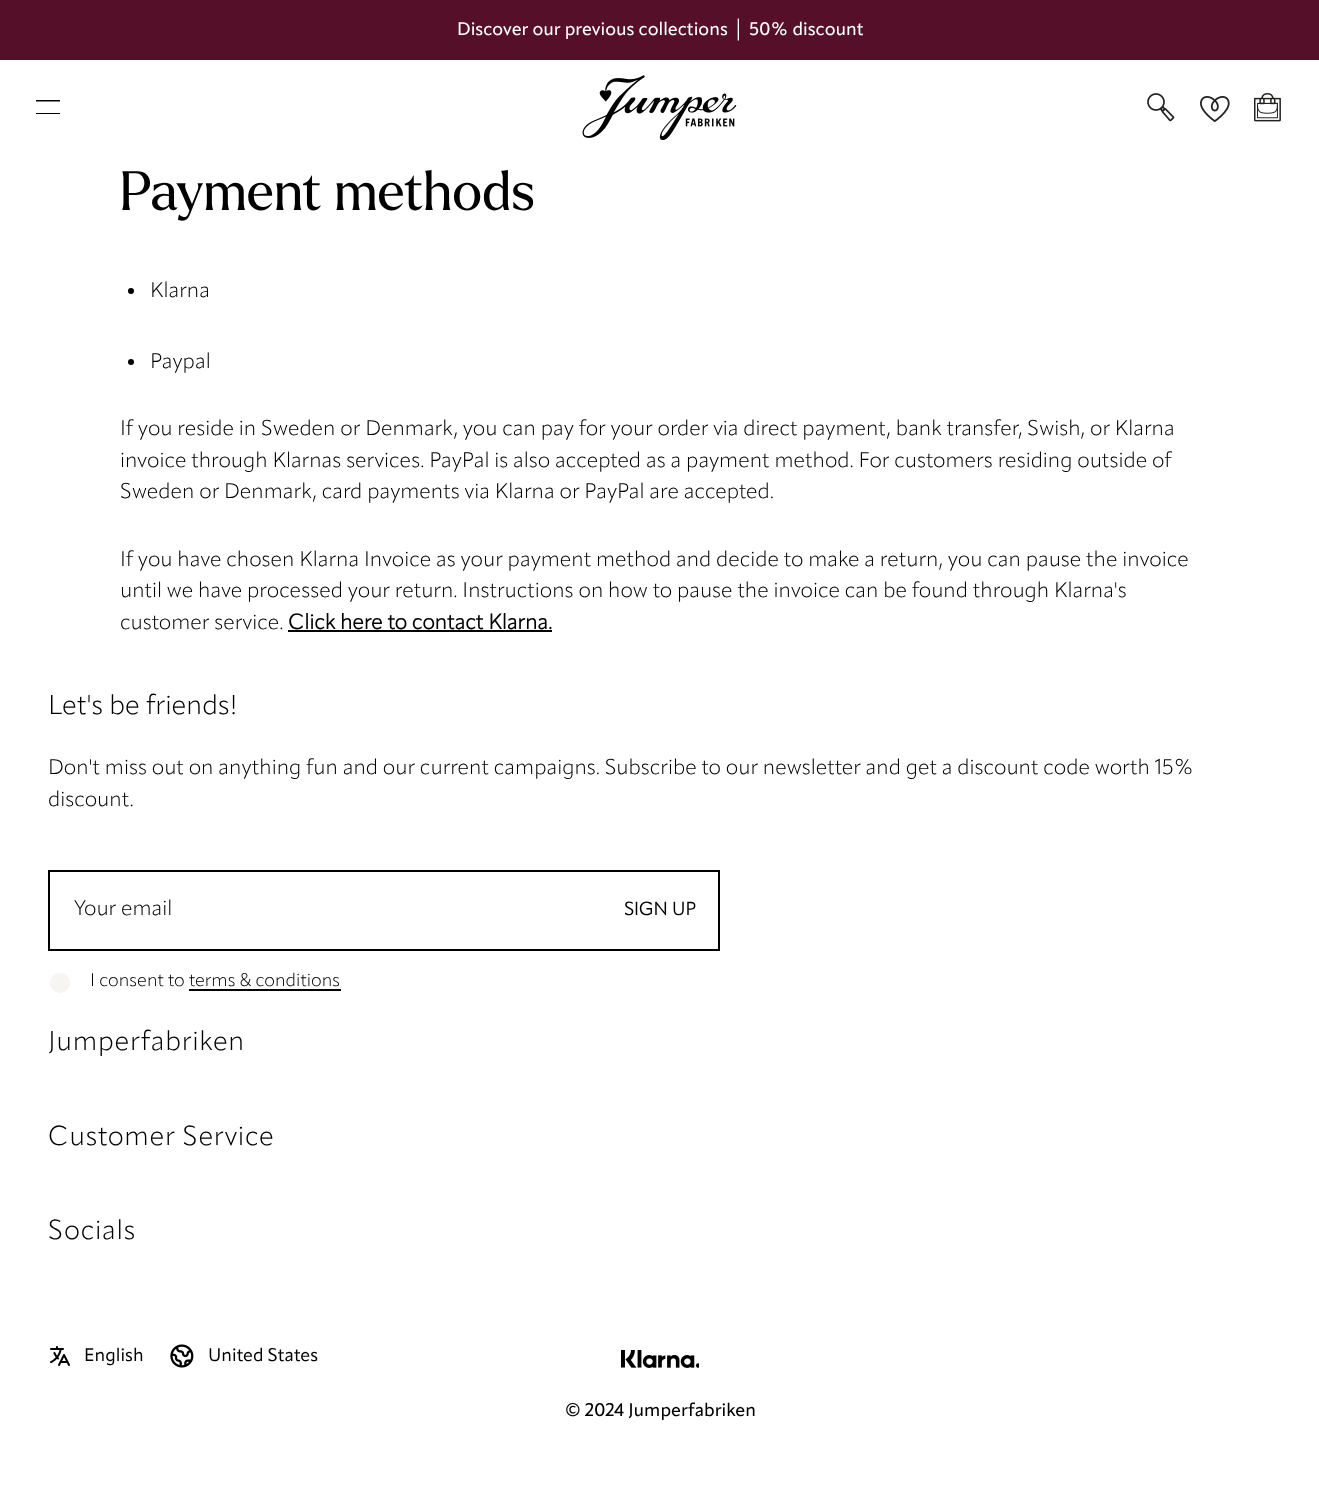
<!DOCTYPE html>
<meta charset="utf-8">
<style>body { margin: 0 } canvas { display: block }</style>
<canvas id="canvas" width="1319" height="1489"></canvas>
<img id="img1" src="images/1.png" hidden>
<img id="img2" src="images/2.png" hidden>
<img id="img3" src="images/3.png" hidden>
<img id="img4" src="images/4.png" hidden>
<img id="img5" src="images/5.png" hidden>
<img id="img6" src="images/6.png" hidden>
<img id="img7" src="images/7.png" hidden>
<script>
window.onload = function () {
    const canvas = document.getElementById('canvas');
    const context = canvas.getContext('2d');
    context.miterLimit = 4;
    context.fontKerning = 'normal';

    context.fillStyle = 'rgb(255, 255, 255)';
    context.fillRect(0, 0, 1319, 1489);
    context.fillStyle = 'rgb(85, 15, 41)';
    context.fillRect(0, 0, 1319, 60);
    context.fillStyle = 'rgb(0, 0, 0)';
    context.beginPath();
    context.moveTo(36, 100);
    context.lineTo(60, 100);
    context.lineTo(60, 101.5);
    context.lineTo(36, 101.5);
    context.closePath();
    context.moveTo(36, 113);
    context.lineTo(60, 113);
    context.lineTo(60, 114);
    context.lineTo(36, 114);
    context.closePath();
    context.fill();
    context.drawImage(document.getElementById('img1'), 582, 75, 155, 66);
    context.drawImage(document.getElementById('img2'), 1147, 93, 28, 29);
    context.drawImage(document.getElementById('img3'), 1200, 96, 30, 26);
    context.drawImage(document.getElementById('img4'), 1254, 93, 27, 29);
    context.beginPath();
    context.arc(131, 291, 3, 0, 2 * Math.PI);
    context.fill();
    context.beginPath();
    context.arc(131, 362, 3, 0, 2 * Math.PI);
    context.fill();
    context.fillRect(288, 630, 264, 2);
    context.strokeStyle = 'rgb(0, 0, 0)';
    context.lineWidth = 2;
    context.strokeRect(49, 871, 670, 79);
    context.fillStyle = 'rgb(247, 245, 241)';
    context.beginPath();
    context.arc(60, 983, 11, 0, 2 * Math.PI);
    context.fill();
    context.strokeStyle = 'rgb(255, 255, 255)';
    context.stroke();
    context.fillStyle = 'rgb(0, 0, 0)';
    context.fillRect(189, 989, 152, 2);
    context.drawImage(document.getElementById('img5'), 50, 1346, 20, 20);
    context.drawImage(document.getElementById('img6'), 170, 1344, 24, 24);
    context.drawImage(document.getElementById('img7'), 621, 1350, 78, 18);
    context.font = '500 18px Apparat';
    context.fillStyle = 'rgb(255, 255, 255)';
    context.fillText('Discover our previous collections', 457, 35);
    context.font = '18px Liberation Serif';
    context.fillText('│', 732, 35);
    context.font = '500 18px Apparat';
    context.fillText('50% discount', 749, 35);
    context.font = '54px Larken';
    context.fillStyle = 'rgb(0, 0, 0)';
    context.fillText('Payment methods', 120, 210);
    context.font = '300 21px Apparat';
    context.fillText('Klarna', 150, 297);
    context.fillText('Paypal', 150, 368);
    context.fillText('If you reside in Sweden or Denmark, you can pay for your order via direct payment, bank transfer, Swish, or Klarna', 120, 435);
    context.fillText('invoice through Klarnas services. PayPal is also accepted as a payment method. For customers residing outside of', 120, 467);
    context.fillText('Sweden or Denmark, card payments via Klarna or PayPal are accepted.', 120, 498);
    context.fillText('If you have chosen Klarna Invoice as your payment method and decide to make a return, you can pause the invoice', 120, 566);
    context.fillText('until we have processed your return. Instructions on how to pause the invoice can be found through Klarna\'s', 120, 597);
    context.fillText('customer service.', 120, 629);
    context.font = 'bold 21px Apparat';
    context.fillText('Click here to contact Klarna.', 288, 629);
    context.font = '300 27px Apparat';
    context.fillText('Let\'s be friends!', 48, 714);
    context.font = '300 21px Apparat';
    context.fillText('Don\'t miss out on anything fun and our current campaigns. Subscribe to our newsletter and get a discount code worth 15%', 48, 774);
    context.fillText('discount.', 48, 806);
    context.fillText('Your email', 74, 915);
    context.font = 'bold 18px Apparat';
    context.fillText('SIGN UP', 624, 915);
    context.font = '300 18px Apparat';
    context.fillText('I consent to terms & conditions', 90, 986);
    context.letterSpacing = '0.7px';
    context.font = '300 27px Apparat';
    context.fillText('Jumperfabriken', 48, 1050);
    context.fillText('Customer Service', 48, 1145);
    context.fillText('Socials', 48, 1239);
    context.letterSpacing = '0px';
    context.font = '18px Apparat';
    context.fillText('English', 84, 1361);
    context.fillText('United States', 208, 1361);
    context.font = '500 18px Apparat';
    context.fillText('© 2024 Jumperfabriken', 565, 1416);
};
</script>
